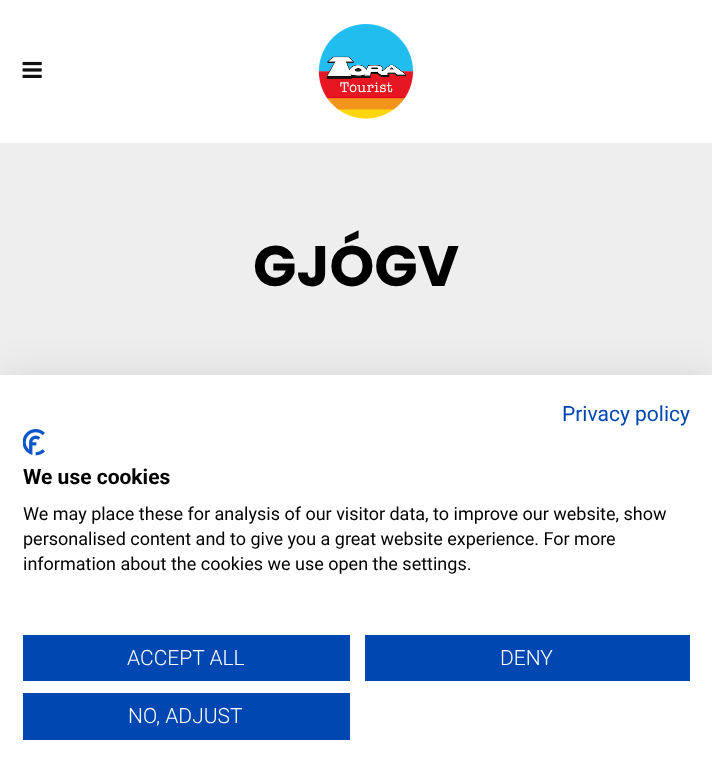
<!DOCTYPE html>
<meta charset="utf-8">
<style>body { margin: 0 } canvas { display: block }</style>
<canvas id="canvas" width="712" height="779"></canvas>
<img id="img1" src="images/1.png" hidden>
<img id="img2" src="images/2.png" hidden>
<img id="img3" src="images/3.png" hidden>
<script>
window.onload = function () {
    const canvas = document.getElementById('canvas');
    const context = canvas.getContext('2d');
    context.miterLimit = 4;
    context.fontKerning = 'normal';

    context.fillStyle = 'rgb(255, 255, 255)';
    context.fillRect(0, 0, 712, 779);
    context.drawImage(document.getElementById('img1'), 22, 61, 20, 17);
    context.drawImage(document.getElementById('img2'), 318, 23, 96, 96);
    context.fillStyle = 'rgb(238, 238, 238)';
    context.fillRect(0, 143, 712, 232);
    context.fillStyle = 'rgba(0, 0, 0, 0.1)';
    context.filter = 'blur(18px)';
    context.beginPath();
    context.rect(0, 375, 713, 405);
    context.fill();
    context.filter = 'none';
    context.fillStyle = 'rgb(255, 255, 255)';
    context.fillRect(0, 375, 712, 404);
    context.drawImage(document.getElementById('img3'), 23, 429, 22, 27);
    context.fillStyle = 'rgb(0, 71, 178)';
    context.fillRect(23, 635, 327, 46);
    context.fillRect(365, 635, 325, 46);
    context.fillRect(23, 693, 327, 47);
    context.font = 'bold 57px Poppins';
    context.fillStyle = 'rgb(0, 0, 0)';
    context.fillText('GJÓGV', 253, 286);
    context.font = '21px Roboto';
    context.fillStyle = 'rgb(0, 71, 178)';
    context.fillText('Privacy policy', 562, 421);
    context.font = 'bold 21px Roboto';
    context.fillStyle = 'rgb(0, 0, 0)';
    context.fillText('We use cookies', 23, 484);
    context.font = '18px Roboto';
    context.fillText('We may place these for analysis of our visitor data, to improve our website, show', 23, 520);
    context.fillText('personalised content and to give you a great website experience. For more', 23, 545);
    context.fillText('information about the cookies we use open the settings.', 23, 570);
    context.font = '300 21px Roboto';
    context.fillStyle = 'rgb(255, 255, 255)';
    context.fillText('ACCEPT ALL', 127, 665);
    context.fillText('DENY', 500, 665);
    context.fillText('NO, ADJUST', 128, 723);
};
</script>
